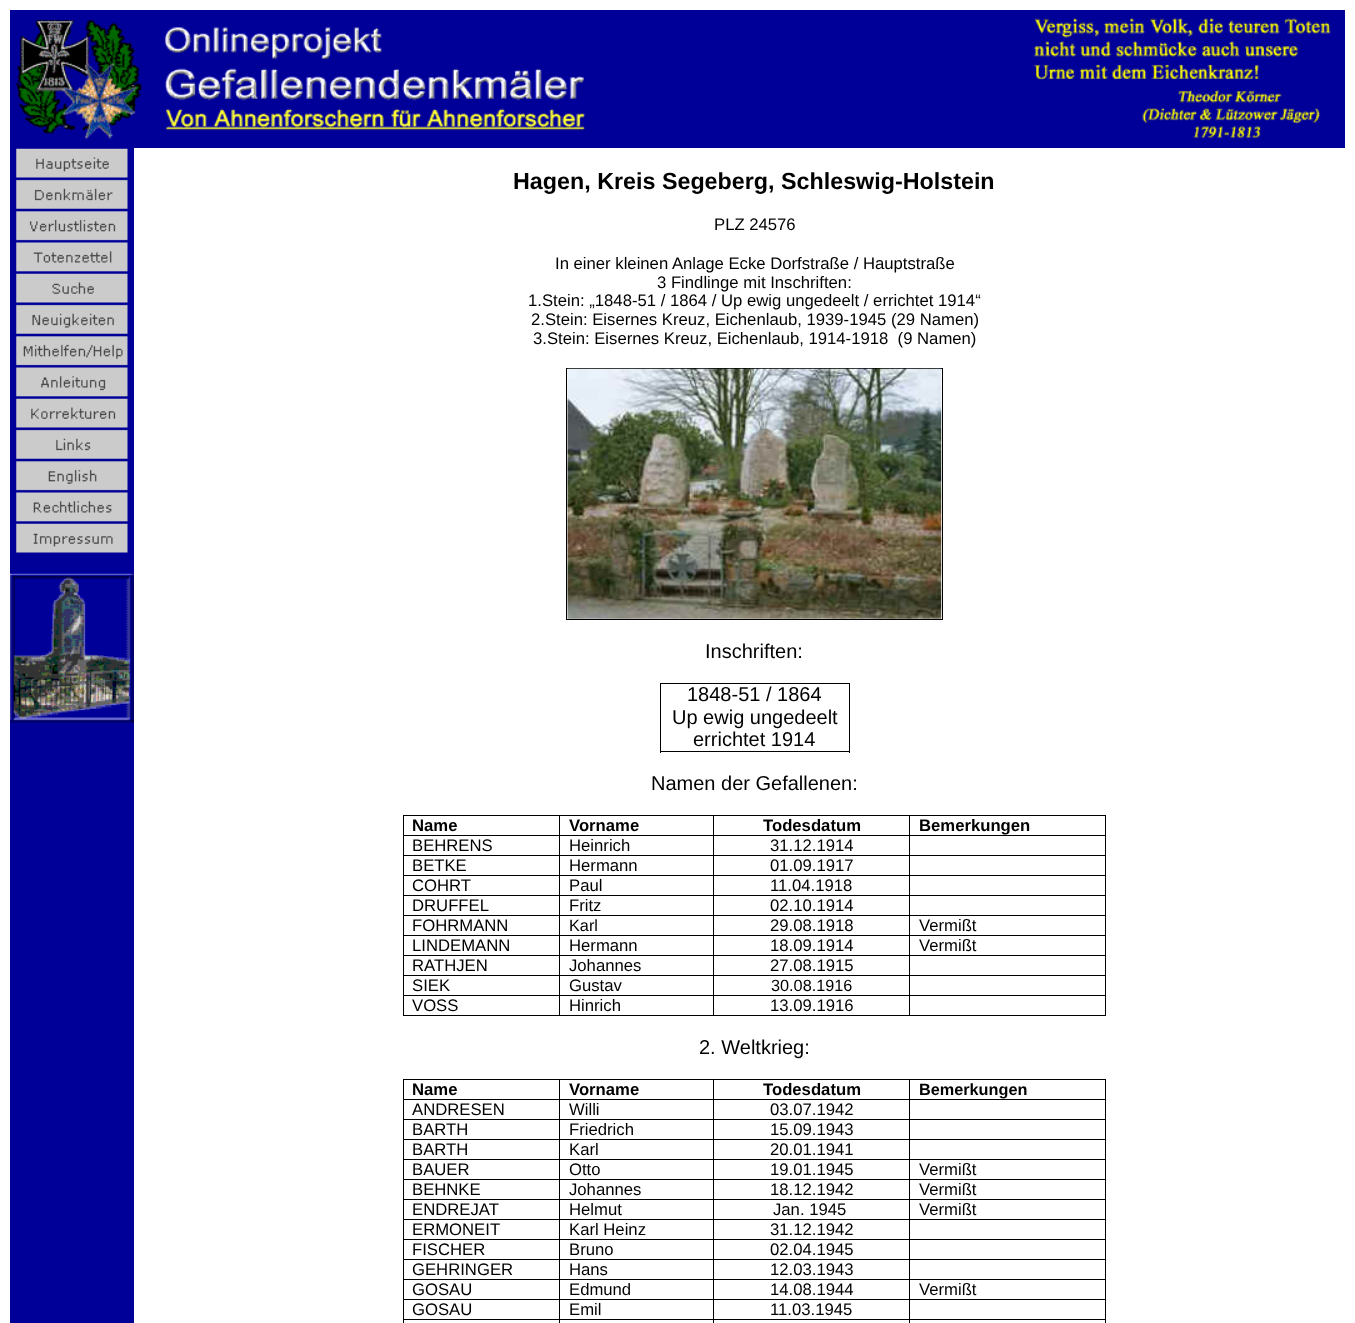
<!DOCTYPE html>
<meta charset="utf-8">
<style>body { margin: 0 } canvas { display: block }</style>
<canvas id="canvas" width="1355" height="1323"></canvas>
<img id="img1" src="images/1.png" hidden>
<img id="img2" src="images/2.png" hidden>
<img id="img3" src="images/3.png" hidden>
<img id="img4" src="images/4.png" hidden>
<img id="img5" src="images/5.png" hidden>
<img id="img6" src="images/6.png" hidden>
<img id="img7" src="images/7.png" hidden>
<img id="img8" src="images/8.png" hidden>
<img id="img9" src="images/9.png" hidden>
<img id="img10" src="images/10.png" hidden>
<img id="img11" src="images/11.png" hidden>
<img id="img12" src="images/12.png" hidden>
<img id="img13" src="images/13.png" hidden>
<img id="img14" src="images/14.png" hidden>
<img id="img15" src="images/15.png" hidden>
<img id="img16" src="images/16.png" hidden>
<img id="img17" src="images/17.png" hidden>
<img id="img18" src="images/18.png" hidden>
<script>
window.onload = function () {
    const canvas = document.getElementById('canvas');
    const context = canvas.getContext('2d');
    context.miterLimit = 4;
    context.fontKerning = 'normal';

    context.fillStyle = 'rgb(255, 255, 255)';
    context.fillRect(0, 0, 1355, 1323);
    context.fillStyle = 'rgb(0, 0, 153)';
    context.fillRect(10, 10, 1335, 138);
    context.drawImage(document.getElementById('img1'), 16, 19, 126, 120);
    context.drawImage(document.getElementById('img2'), 164, 27, 422, 104);
    context.drawImage(document.getElementById('img3'), 1033, 18, 298, 120);
    context.fillRect(10, 148, 124, 1175);
    context.drawImage(document.getElementById('img4'), 16, 148, 112, 30);
    context.drawImage(document.getElementById('img5'), 16, 179, 112, 30);
    context.drawImage(document.getElementById('img6'), 16, 211, 112, 30);
    context.drawImage(document.getElementById('img7'), 16, 242, 112, 30);
    context.drawImage(document.getElementById('img8'), 16, 273, 112, 30);
    context.drawImage(document.getElementById('img9'), 16, 304, 112, 30);
    context.drawImage(document.getElementById('img10'), 16, 336, 112, 30);
    context.drawImage(document.getElementById('img11'), 16, 367, 112, 30);
    context.drawImage(document.getElementById('img12'), 16, 398, 112, 30);
    context.drawImage(document.getElementById('img13'), 16, 429, 112, 30);
    context.drawImage(document.getElementById('img14'), 16, 461, 112, 30);
    context.drawImage(document.getElementById('img15'), 16, 492, 112, 30);
    context.drawImage(document.getElementById('img16'), 16, 523, 112, 30);
    context.drawImage(document.getElementById('img17'), 10, 573, 124, 150);
    context.strokeStyle = 'rgb(0, 0, 0)';
    context.strokeRect(566.5, 368.5, 376, 251);
    context.drawImage(document.getElementById('img18'), 567, 368, 375, 251);
    context.fillStyle = 'rgb(0, 0, 0)';
    context.fillRect(660, 683, 190, 1);
    context.fillRect(849, 683, 1, 70);
    context.fillRect(660, 751, 190, 1);
    context.fillRect(660, 683, 1, 70);
    context.fillRect(403, 815, 703, 1);
    context.fillRect(1105, 835, 1, 181);
    context.fillRect(1105, 815, 1, 21);
    context.fillRect(909, 1015, 197, 1);
    context.fillRect(909, 995, 1, 21);
    context.fillRect(909, 995, 197, 1);
    context.fillRect(909, 975, 1, 21);
    context.fillRect(909, 975, 197, 1);
    context.fillRect(909, 955, 1, 21);
    context.fillRect(909, 955, 197, 1);
    context.fillRect(909, 935, 1, 21);
    context.fillRect(909, 935, 197, 1);
    context.fillRect(909, 915, 1, 21);
    context.fillRect(909, 915, 197, 1);
    context.fillRect(909, 895, 1, 21);
    context.fillRect(909, 895, 197, 1);
    context.fillRect(909, 875, 1, 21);
    context.fillRect(909, 875, 197, 1);
    context.fillRect(909, 855, 1, 21);
    context.fillRect(909, 855, 197, 1);
    context.fillRect(909, 835, 1, 21);
    context.fillRect(909, 835, 197, 1);
    context.fillRect(909, 815, 1, 21);
    context.fillRect(713, 1015, 197, 1);
    context.fillRect(713, 995, 1, 21);
    context.fillRect(713, 995, 197, 1);
    context.fillRect(713, 975, 1, 21);
    context.fillRect(713, 975, 197, 1);
    context.fillRect(713, 955, 1, 21);
    context.fillRect(713, 955, 197, 1);
    context.fillRect(713, 935, 1, 21);
    context.fillRect(713, 935, 197, 1);
    context.fillRect(713, 915, 1, 21);
    context.fillRect(713, 915, 197, 1);
    context.fillRect(713, 895, 1, 21);
    context.fillRect(713, 895, 197, 1);
    context.fillRect(713, 875, 1, 21);
    context.fillRect(713, 875, 197, 1);
    context.fillRect(713, 855, 1, 21);
    context.fillRect(713, 855, 197, 1);
    context.fillRect(713, 835, 1, 21);
    context.fillRect(713, 835, 197, 1);
    context.fillRect(713, 815, 1, 21);
    context.fillRect(559, 1015, 155, 1);
    context.fillRect(559, 995, 1, 21);
    context.fillRect(559, 995, 155, 1);
    context.fillRect(559, 975, 1, 21);
    context.fillRect(559, 975, 155, 1);
    context.fillRect(559, 955, 1, 21);
    context.fillRect(559, 955, 155, 1);
    context.fillRect(559, 935, 1, 21);
    context.fillRect(559, 935, 155, 1);
    context.fillRect(559, 915, 1, 21);
    context.fillRect(559, 915, 155, 1);
    context.fillRect(559, 895, 1, 21);
    context.fillRect(559, 895, 155, 1);
    context.fillRect(559, 875, 1, 21);
    context.fillRect(559, 875, 155, 1);
    context.fillRect(559, 855, 1, 21);
    context.fillRect(559, 855, 155, 1);
    context.fillRect(559, 835, 1, 21);
    context.fillRect(559, 835, 155, 1);
    context.fillRect(559, 815, 1, 21);
    context.fillRect(403, 1015, 157, 1);
    context.fillRect(403, 995, 1, 21);
    context.fillRect(403, 995, 157, 1);
    context.fillRect(403, 975, 1, 21);
    context.fillRect(403, 975, 157, 1);
    context.fillRect(403, 955, 1, 21);
    context.fillRect(403, 955, 157, 1);
    context.fillRect(403, 935, 1, 21);
    context.fillRect(403, 935, 157, 1);
    context.fillRect(403, 915, 1, 21);
    context.fillRect(403, 915, 157, 1);
    context.fillRect(403, 895, 1, 21);
    context.fillRect(403, 895, 157, 1);
    context.fillRect(403, 875, 1, 21);
    context.fillRect(403, 875, 157, 1);
    context.fillRect(403, 855, 1, 21);
    context.fillRect(403, 855, 157, 1);
    context.fillRect(403, 835, 1, 21);
    context.fillRect(403, 835, 157, 1);
    context.fillRect(403, 815, 1, 21);
    context.fillRect(403, 1079, 703, 1);
    context.fillRect(1105, 1099, 1, 224);
    context.fillRect(1105, 1079, 1, 21);
    context.fillRect(909, 1319, 1, 4);
    context.fillRect(909, 1319, 197, 1);
    context.fillRect(909, 1299, 1, 21);
    context.fillRect(909, 1299, 197, 1);
    context.fillRect(909, 1279, 1, 21);
    context.fillRect(909, 1279, 197, 1);
    context.fillRect(909, 1259, 1, 21);
    context.fillRect(909, 1259, 197, 1);
    context.fillRect(909, 1239, 1, 21);
    context.fillRect(909, 1239, 197, 1);
    context.fillRect(909, 1219, 1, 21);
    context.fillRect(909, 1219, 197, 1);
    context.fillRect(909, 1199, 1, 21);
    context.fillRect(909, 1199, 197, 1);
    context.fillRect(909, 1179, 1, 21);
    context.fillRect(909, 1179, 197, 1);
    context.fillRect(909, 1159, 1, 21);
    context.fillRect(909, 1159, 197, 1);
    context.fillRect(909, 1139, 1, 21);
    context.fillRect(909, 1139, 197, 1);
    context.fillRect(909, 1119, 1, 21);
    context.fillRect(909, 1119, 197, 1);
    context.fillRect(909, 1099, 1, 21);
    context.fillRect(909, 1099, 197, 1);
    context.fillRect(909, 1079, 1, 21);
    context.fillRect(713, 1319, 1, 4);
    context.fillRect(713, 1319, 197, 1);
    context.fillRect(713, 1299, 1, 21);
    context.fillRect(713, 1299, 197, 1);
    context.fillRect(713, 1279, 1, 21);
    context.fillRect(713, 1279, 197, 1);
    context.fillRect(713, 1259, 1, 21);
    context.fillRect(713, 1259, 197, 1);
    context.fillRect(713, 1239, 1, 21);
    context.fillRect(713, 1239, 197, 1);
    context.fillRect(713, 1219, 1, 21);
    context.fillRect(713, 1219, 197, 1);
    context.fillRect(713, 1199, 1, 21);
    context.fillRect(713, 1199, 197, 1);
    context.fillRect(713, 1179, 1, 21);
    context.fillRect(713, 1179, 197, 1);
    context.fillRect(713, 1159, 1, 21);
    context.fillRect(713, 1159, 197, 1);
    context.fillRect(713, 1139, 1, 21);
    context.fillRect(713, 1139, 197, 1);
    context.fillRect(713, 1119, 1, 21);
    context.fillRect(713, 1119, 197, 1);
    context.fillRect(713, 1099, 1, 21);
    context.fillRect(713, 1099, 197, 1);
    context.fillRect(713, 1079, 1, 21);
    context.fillRect(559, 1319, 1, 4);
    context.fillRect(559, 1319, 155, 1);
    context.fillRect(559, 1299, 1, 21);
    context.fillRect(559, 1299, 155, 1);
    context.fillRect(559, 1279, 1, 21);
    context.fillRect(559, 1279, 155, 1);
    context.fillRect(559, 1259, 1, 21);
    context.fillRect(559, 1259, 155, 1);
    context.fillRect(559, 1239, 1, 21);
    context.fillRect(559, 1239, 155, 1);
    context.fillRect(559, 1219, 1, 21);
    context.fillRect(559, 1219, 155, 1);
    context.fillRect(559, 1199, 1, 21);
    context.fillRect(559, 1199, 155, 1);
    context.fillRect(559, 1179, 1, 21);
    context.fillRect(559, 1179, 155, 1);
    context.fillRect(559, 1159, 1, 21);
    context.fillRect(559, 1159, 155, 1);
    context.fillRect(559, 1139, 1, 21);
    context.fillRect(559, 1139, 155, 1);
    context.fillRect(559, 1119, 1, 21);
    context.fillRect(559, 1119, 155, 1);
    context.fillRect(559, 1099, 1, 21);
    context.fillRect(559, 1099, 155, 1);
    context.fillRect(559, 1079, 1, 21);
    context.fillRect(403, 1319, 1, 4);
    context.fillRect(403, 1319, 157, 1);
    context.fillRect(403, 1299, 1, 21);
    context.fillRect(403, 1299, 157, 1);
    context.fillRect(403, 1279, 1, 21);
    context.fillRect(403, 1279, 157, 1);
    context.fillRect(403, 1259, 1, 21);
    context.fillRect(403, 1259, 157, 1);
    context.fillRect(403, 1239, 1, 21);
    context.fillRect(403, 1239, 157, 1);
    context.fillRect(403, 1219, 1, 21);
    context.fillRect(403, 1219, 157, 1);
    context.fillRect(403, 1199, 1, 21);
    context.fillRect(403, 1199, 157, 1);
    context.fillRect(403, 1179, 1, 21);
    context.fillRect(403, 1179, 157, 1);
    context.fillRect(403, 1159, 1, 21);
    context.fillRect(403, 1159, 157, 1);
    context.fillRect(403, 1139, 1, 21);
    context.fillRect(403, 1139, 157, 1);
    context.fillRect(403, 1119, 1, 21);
    context.fillRect(403, 1119, 157, 1);
    context.fillRect(403, 1099, 1, 21);
    context.fillRect(403, 1099, 157, 1);
    context.fillRect(403, 1079, 1, 21);
    context.font = 'bold 23.3px Liberation Sans';
    context.fillText('Hagen, Kreis Segeberg, Schleswig-Holstein', 513, 189);
    context.font = '16.7px Liberation Sans';
    context.fillText('PLZ 24576', 714, 230);
    context.fillText('In einer kleinen Anlage Ecke Dorfstraße / Hauptstraße', 555, 269);
    context.fillText('3 Findlinge mit Inschriften:', 657, 288);
    context.fillText('1.Stein: „1848-51 / 1864 / Up ewig ungedeelt / errichtet 1914“', 528, 306);
    context.fillText('2.Stein: Eisernes Kreuz, Eichenlaub, 1939-1945 (29 Namen)', 531, 325);
    context.fillText('3.Stein: Eisernes Kreuz, Eichenlaub, 1914-1918  (9 Namen)', 533, 344);
    context.font = '20px Liberation Sans';
    context.fillText('Inschriften:', 705, 658);
    context.fillText('1848-51 / 1864', 687, 701);
    context.fillText('Up ewig ungedeelt', 672, 724);
    context.fillText('errichtet 1914', 693, 746);
    context.fillText('Namen der Gefallenen:', 651, 790);
    context.font = 'bold 16.7px Liberation Sans';
    context.fillText('Name', 412, 831);
    context.fillText('Vorname', 569, 831);
    context.fillText('Todesdatum', 763, 831);
    context.fillText('Bemerkungen', 919, 831);
    context.font = '16.7px Liberation Sans';
    context.fillText('BEHRENS', 412, 851);
    context.fillText('Heinrich', 569, 851);
    context.fillText('31.12.1914', 770, 851);
    context.fillText('BETKE', 412, 871);
    context.fillText('Hermann', 569, 871);
    context.fillText('01.09.1917', 770, 871);
    context.fillText('COHRT', 412, 891);
    context.fillText('Paul', 569, 891);
    context.fillText('11.04.1918', 770, 891);
    context.fillText('DRUFFEL', 412, 911);
    context.fillText('Fritz', 569, 911);
    context.fillText('02.10.1914', 770, 911);
    context.fillText('FOHRMANN', 412, 931);
    context.font = '16.25px Liberation Sans';
    context.fillText('Karl', 569, 931);
    context.font = '16.7px Liberation Sans';
    context.fillText('29.08.1918', 770, 931);
    context.fillText('Vermißt', 919, 931);
    context.fillText('LINDEMANN', 412, 951);
    context.fillText('Hermann', 569, 951);
    context.fillText('18.09.1914', 770, 951);
    context.fillText('Vermißt', 919, 951);
    context.fillText('RATHJEN', 412, 971);
    context.fillText('Johannes', 569, 971);
    context.fillText('27.08.1915', 770, 971);
    context.fillText('SIEK', 412, 991);
    context.fillText('Gustav', 569, 991);
    context.font = '16.25px Liberation Sans';
    context.fillText('30.08.1916', 771, 991);
    context.font = '16.7px Liberation Sans';
    context.fillText('VOSS', 412, 1011);
    context.fillText('Hinrich', 569, 1011);
    context.fillText('13.09.1916', 770, 1011);
    context.font = '20px Liberation Sans';
    context.fillText('2. Weltkrieg:', 699, 1054);
    context.font = 'bold 16.7px Liberation Sans';
    context.fillText('Name', 412, 1095);
    context.fillText('Vorname', 569, 1095);
    context.fillText('Todesdatum', 763, 1095);
    context.font = 'bold 16.25px Liberation Sans';
    context.fillText('Bemerkungen', 919, 1095);
    context.font = '16.7px Liberation Sans';
    context.fillText('ANDRESEN', 412, 1115);
    context.fillText('Willi', 569, 1115);
    context.fillText('03.07.1942', 770, 1115);
    context.fillText('BARTH', 412, 1135);
    context.fillText('Friedrich', 569, 1135);
    context.fillText('15.09.1943', 770, 1135);
    context.fillText('BARTH', 412, 1155);
    context.fillText('Karl', 569, 1155);
    context.fillText('20.01.1941', 770, 1155);
    context.fillText('BAUER', 412, 1175);
    context.fillText('Otto', 569, 1175);
    context.fillText('19.01.1945', 770, 1175);
    context.fillText('Vermißt', 919, 1175);
    context.fillText('BEHNKE', 412, 1195);
    context.fillText('Johannes', 569, 1195);
    context.fillText('18.12.1942', 770, 1195);
    context.fillText('Vermißt', 919, 1195);
    context.fillText('ENDREJAT', 412, 1215);
    context.fillText('Helmut', 569, 1215);
    context.fillText('Jan. 1945', 773, 1215);
    context.fillText('Vermißt', 919, 1215);
    context.fillText('ERMONEIT', 412, 1235);
    context.fillText('Karl Heinz', 569, 1235);
    context.fillText('31.12.1942', 770, 1235);
    context.fillText('FISCHER', 412, 1255);
    context.fillText('Bruno', 569, 1255);
    context.fillText('02.04.1945', 770, 1255);
    context.fillText('GEHRINGER', 412, 1275);
    context.fillText('Hans', 569, 1275);
    context.fillText('12.03.1943', 770, 1275);
    context.fillText('GOSAU', 412, 1295);
    context.fillText('Edmund', 569, 1295);
    context.fillText('14.08.1944', 770, 1295);
    context.fillText('Vermißt', 919, 1295);
    context.fillText('GOSAU', 412, 1315);
    context.fillText('Emil', 569, 1315);
    context.fillText('11.03.1945', 770, 1315);
};
</script>
